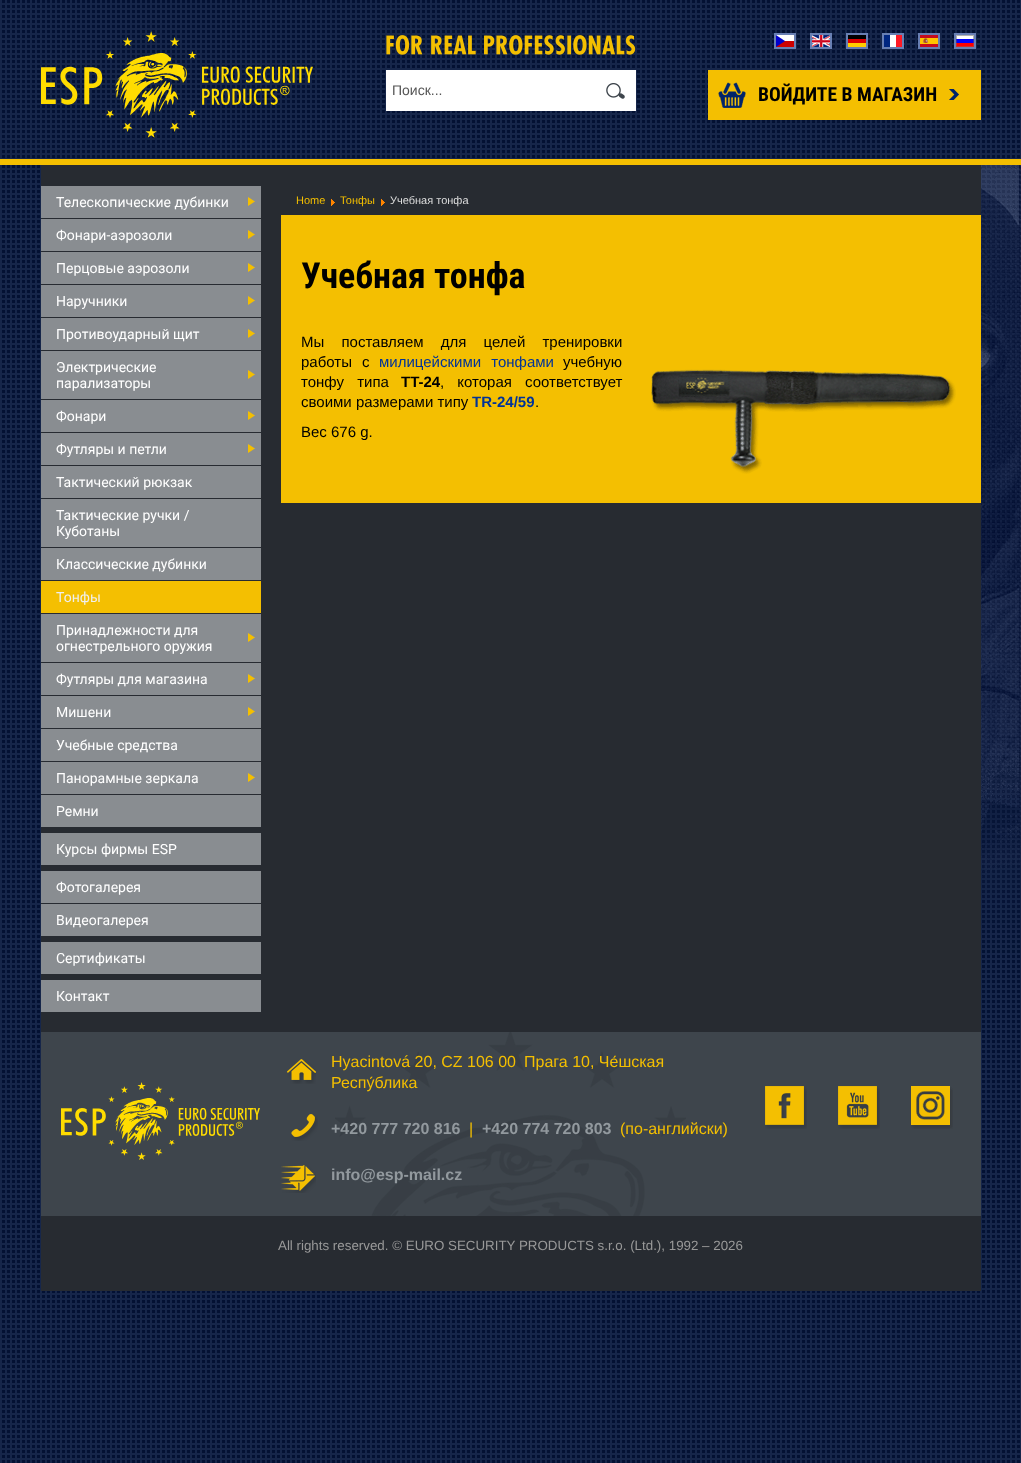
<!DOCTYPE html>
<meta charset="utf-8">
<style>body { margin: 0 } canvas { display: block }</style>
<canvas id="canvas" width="1021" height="1463"></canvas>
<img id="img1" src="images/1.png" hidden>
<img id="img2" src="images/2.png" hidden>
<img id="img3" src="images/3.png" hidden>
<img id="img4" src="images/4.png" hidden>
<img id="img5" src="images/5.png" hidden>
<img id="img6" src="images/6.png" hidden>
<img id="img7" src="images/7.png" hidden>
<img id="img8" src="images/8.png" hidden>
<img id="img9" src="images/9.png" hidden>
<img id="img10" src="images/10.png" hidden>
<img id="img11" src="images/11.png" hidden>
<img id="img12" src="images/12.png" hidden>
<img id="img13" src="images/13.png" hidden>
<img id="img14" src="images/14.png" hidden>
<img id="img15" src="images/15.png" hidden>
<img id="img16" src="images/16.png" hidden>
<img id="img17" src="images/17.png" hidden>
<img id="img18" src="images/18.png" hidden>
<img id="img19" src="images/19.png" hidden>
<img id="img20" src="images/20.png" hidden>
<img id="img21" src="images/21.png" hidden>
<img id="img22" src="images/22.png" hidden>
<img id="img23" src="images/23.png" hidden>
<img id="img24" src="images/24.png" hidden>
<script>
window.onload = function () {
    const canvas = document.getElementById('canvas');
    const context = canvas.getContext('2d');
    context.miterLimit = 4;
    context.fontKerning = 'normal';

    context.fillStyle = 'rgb(3, 17, 51)';
    context.fillRect(0, 0, 1021, 1463);
    context.drawImage(document.getElementById('img1'), 0, 0, 1021, 1463);
    context.drawImage(document.getElementById('img2'), 981, 165, 40, 788);
    context.fillStyle = 'rgb(244, 191, 1)';
    context.fillRect(0, 159, 1021, 6);
    context.drawImage(document.getElementById('img3'), 41, 31, 272, 107);
    context.drawImage(document.getElementById('img4'), 386, 35, 250, 20);
    context.fillStyle = 'rgb(255, 255, 255)';
    context.fillRect(386, 70, 250, 41);
    context.drawImage(document.getElementById('img5'), 606, 83, 19, 16);
    context.strokeStyle = 'rgb(104, 127, 179)';
    context.lineWidth = 2;
    context.strokeRect(775, 34, 20, 14);
    context.strokeRect(811, 34, 20, 14);
    context.strokeRect(847, 34, 20, 14);
    context.strokeRect(883, 34, 20, 14);
    context.strokeRect(919, 34, 20, 14);
    context.strokeRect(955, 34, 20, 14);
    context.drawImage(document.getElementById('img6'), 776, 35, 18, 12);
    context.drawImage(document.getElementById('img7'), 812, 35, 18, 12);
    context.drawImage(document.getElementById('img8'), 848, 35, 18, 12);
    context.drawImage(document.getElementById('img9'), 884, 35, 18, 12);
    context.drawImage(document.getElementById('img10'), 920, 35, 18, 12);
    context.drawImage(document.getElementById('img11'), 956, 35, 18, 12);
    context.fillStyle = 'rgb(244, 191, 1)';
    context.fillRect(708, 70, 273, 50);
    context.drawImage(document.getElementById('img12'), 718, 82, 28, 26);
    context.drawImage(document.getElementById('img13'), 949, 89, 10, 11);
    context.fillStyle = 'rgb(39, 43, 49)';
    context.fillRect(41, 165, 940, 1126);
    context.fillStyle = 'rgb(137, 141, 145)';
    context.fillRect(41, 186, 220, 826);
    context.fillStyle = 'rgb(39, 43, 49)';
    context.fillRect(41, 218, 220, 1);
    context.drawImage(document.getElementById('img14'), 248, 197, 7, 9);
    context.fillRect(41, 251, 220, 1);
    context.drawImage(document.getElementById('img14'), 248, 230, 7, 9);
    context.fillRect(41, 284, 220, 1);
    context.drawImage(document.getElementById('img14'), 248, 263, 7, 9);
    context.fillRect(41, 317, 220, 1);
    context.drawImage(document.getElementById('img14'), 248, 296, 7, 9);
    context.fillRect(41, 350, 220, 1);
    context.drawImage(document.getElementById('img14'), 248, 329, 7, 9);
    context.fillRect(41, 399, 220, 1);
    context.drawImage(document.getElementById('img14'), 248, 370, 7, 9);
    context.fillRect(41, 432, 220, 1);
    context.drawImage(document.getElementById('img14'), 248, 411, 7, 9);
    context.fillRect(41, 465, 220, 1);
    context.drawImage(document.getElementById('img14'), 248, 444, 7, 9);
    context.fillRect(41, 498, 220, 1);
    context.fillRect(41, 547, 220, 1);
    context.fillRect(41, 580, 220, 1);
    context.fillStyle = 'rgb(244, 191, 1)';
    context.fillRect(41, 581, 220, 32);
    context.fillStyle = 'rgb(39, 43, 49)';
    context.fillRect(41, 613, 220, 1);
    context.fillRect(41, 662, 220, 1);
    context.drawImage(document.getElementById('img14'), 248, 633, 7, 9);
    context.fillRect(41, 695, 220, 1);
    context.drawImage(document.getElementById('img14'), 248, 674, 7, 9);
    context.fillRect(41, 728, 220, 1);
    context.drawImage(document.getElementById('img14'), 248, 707, 7, 9);
    context.fillRect(41, 761, 220, 1);
    context.fillRect(41, 794, 220, 1);
    context.drawImage(document.getElementById('img14'), 248, 773, 7, 9);
    context.fillRect(41, 827, 220, 1);
    context.fillRect(41, 828, 220, 5);
    context.fillRect(41, 865, 220, 1);
    context.fillRect(41, 866, 220, 5);
    context.fillRect(41, 903, 220, 1);
    context.fillRect(41, 936, 220, 1);
    context.fillRect(41, 937, 220, 5);
    context.fillRect(41, 974, 220, 1);
    context.fillRect(41, 975, 220, 5);
    context.drawImage(document.getElementById('img15'), 331, 199, 4, 7);
    context.drawImage(document.getElementById('img15'), 381, 199, 4, 7);
    context.fillStyle = 'rgb(244, 191, 1)';
    context.fillRect(281, 215, 700, 288);
    context.drawImage(document.getElementById('img16'), 651, 369, 305, 105);
    context.fillStyle = 'rgb(62, 69, 76)';
    context.fillRect(41, 1032, 940, 184);
    context.drawImage(document.getElementById('img17'), 335, 1032, 351, 184);
    context.drawImage(document.getElementById('img18'), 61, 1082, 199, 78);
    context.drawImage(document.getElementById('img19'), 287, 1059, 29, 25);
    context.drawImage(document.getElementById('img20'), 291, 1114, 27, 27);
    context.drawImage(document.getElementById('img21'), 281, 1165, 35, 28);
    context.drawImage(document.getElementById('img22'), 765, 1086, 42, 43);
    context.drawImage(document.getElementById('img23'), 838, 1086, 42, 43);
    context.drawImage(document.getElementById('img24'), 911, 1086, 42, 43);
    context.font = '14px Liberation Sans';
    context.fillStyle = 'rgb(85, 85, 85)';
    context.fillText('Поиск...', 392, 95);
    context.font = 'bold 19.5px Roboto Condensed';
    context.fillStyle = 'rgb(0, 0, 0)';
    context.fillText('ВОЙДИТЕ В МАГАЗИН', 758, 101);
    context.font = '14px Roboto';
    context.fillStyle = 'rgb(255, 255, 255)';
    context.fillText('Телескопические дубинки', 56, 207);
    context.fillText('Фонари-аэрозоли', 56, 240);
    context.fillText('Перцовые аэрозоли', 56, 273);
    context.fillText('Наручники', 56, 306);
    context.fillText('Противоударный щит', 56, 339);
    context.fillText('Электрические', 56, 372);
    context.fillText('парализаторы', 56, 388);
    context.fillText('Фонари', 56, 421);
    context.fillText('Футляры и петли', 56, 454);
    context.fillText('Тактический рюкзак', 56, 487);
    context.fillText('Тактические ручки /', 56, 520);
    context.fillText('Куботаны', 56, 536);
    context.fillText('Классические дубинки', 56, 569);
    context.fillStyle = 'rgb(239, 239, 239)';
    context.fillText('Тонфы', 56, 602);
    context.fillStyle = 'rgb(255, 255, 255)';
    context.fillText('Принадлежности для', 56, 635);
    context.fillText('огнестрельного оружия', 56, 651);
    context.fillText('Футляры для магазина', 56, 684);
    context.fillText('Мишени', 56, 717);
    context.fillText('Учебные средства', 56, 750);
    context.fillText('Панорамные зеркала', 56, 783);
    context.fillText('Ремни', 56, 816);
    context.fillText('Курсы фирмы ESP', 56, 854);
    context.fillText('Фотогалерея', 56, 892);
    context.fillText('Видеогалерея', 56, 925);
    context.fillText('Сертификaты', 56, 963);
    context.fillText('Контакт', 56, 1001);
    context.font = '11px Liberation Sans';
    context.fillStyle = 'rgb(244, 191, 1)';
    context.fillText('Home', 296, 204);
    context.fillText('Тонфы', 340, 204);
    context.fillStyle = 'rgb(221, 221, 221)';
    context.fillText('Учебная тонфа', 390, 204);
    context.font = 'bold 36px Roboto Condensed';
    context.fillStyle = 'rgb(0, 0, 0)';
    context.fillText('Учебная тонфа', 301, 288);
    context.wordSpacing = '13px';
    context.font = '15px Liberation Sans';
    context.fillText('Мы поставляем для целей тренировки', 301, 347);
    context.wordSpacing = '6px';
    context.fillText('работы с', 301, 367);
    context.fillStyle = 'rgb(0, 51, 153)';
    context.fillText('милицейскими тонфами', 379, 367);
    context.wordSpacing = '0px';
    context.fillStyle = 'rgb(0, 0, 0)';
    context.fillText('учебную', 563, 367);
    context.wordSpacing = '9px';
    context.fillText('тонфу типа', 301, 387);
    context.wordSpacing = '0px';
    context.font = 'bold 15px Liberation Sans';
    context.fillText('TT-24', 401, 387);
    context.wordSpacing = '9px';
    context.font = '15px Liberation Sans';
    context.fillText(', которая соответствует', 440, 387);
    context.wordSpacing = '0px';
    context.fillText('своими размерами типу', 301, 407);
    context.font = 'bold 15px Liberation Sans';
    context.fillStyle = 'rgb(0, 51, 153)';
    context.fillText('TR-24/59', 472, 407);
    context.font = '15px Liberation Sans';
    context.fillStyle = 'rgb(0, 0, 0)';
    context.fillText('.', 535, 407);
    context.fillText('Вес 676 g.', 301, 437);
    context.font = '16px Liberation Sans';
    context.fillStyle = 'rgb(244, 191, 1)';
    context.fillText('Hyacintová 20, CZ 106 00', 331, 1067);
    context.fillText('Прага 10, Че́шская', 524, 1067);
    context.fillText('Респу́блика', 331, 1088);
    context.font = 'bold 16px Liberation Sans';
    context.fillStyle = 'rgb(146, 153, 158)';
    context.fillText('+420 777 720 816', 331, 1134);
    context.font = '16px Liberation Sans';
    context.fillStyle = 'rgb(244, 191, 1)';
    context.fillText('|', 469, 1134);
    context.font = 'bold 16px Liberation Sans';
    context.fillStyle = 'rgb(146, 153, 158)';
    context.fillText('+420 774 720 803', 482, 1134);
    context.font = '16px Liberation Sans';
    context.fillStyle = 'rgb(244, 191, 1)';
    context.fillText('(по-английски)', 620, 1134);
    context.font = 'bold 16px Liberation Sans';
    context.fillStyle = 'rgb(146, 153, 158)';
    context.fillText('info@esp-mail.cz', 331, 1180);
    context.font = '13.35px Liberation Sans';
    context.fillStyle = 'rgb(153, 153, 153)';
    context.fillText('All rights reserved. © EURO SECURITY PRODUCTS s.r.o. (Ltd.), 1992 – 2026', 278, 1250);
};
</script>
